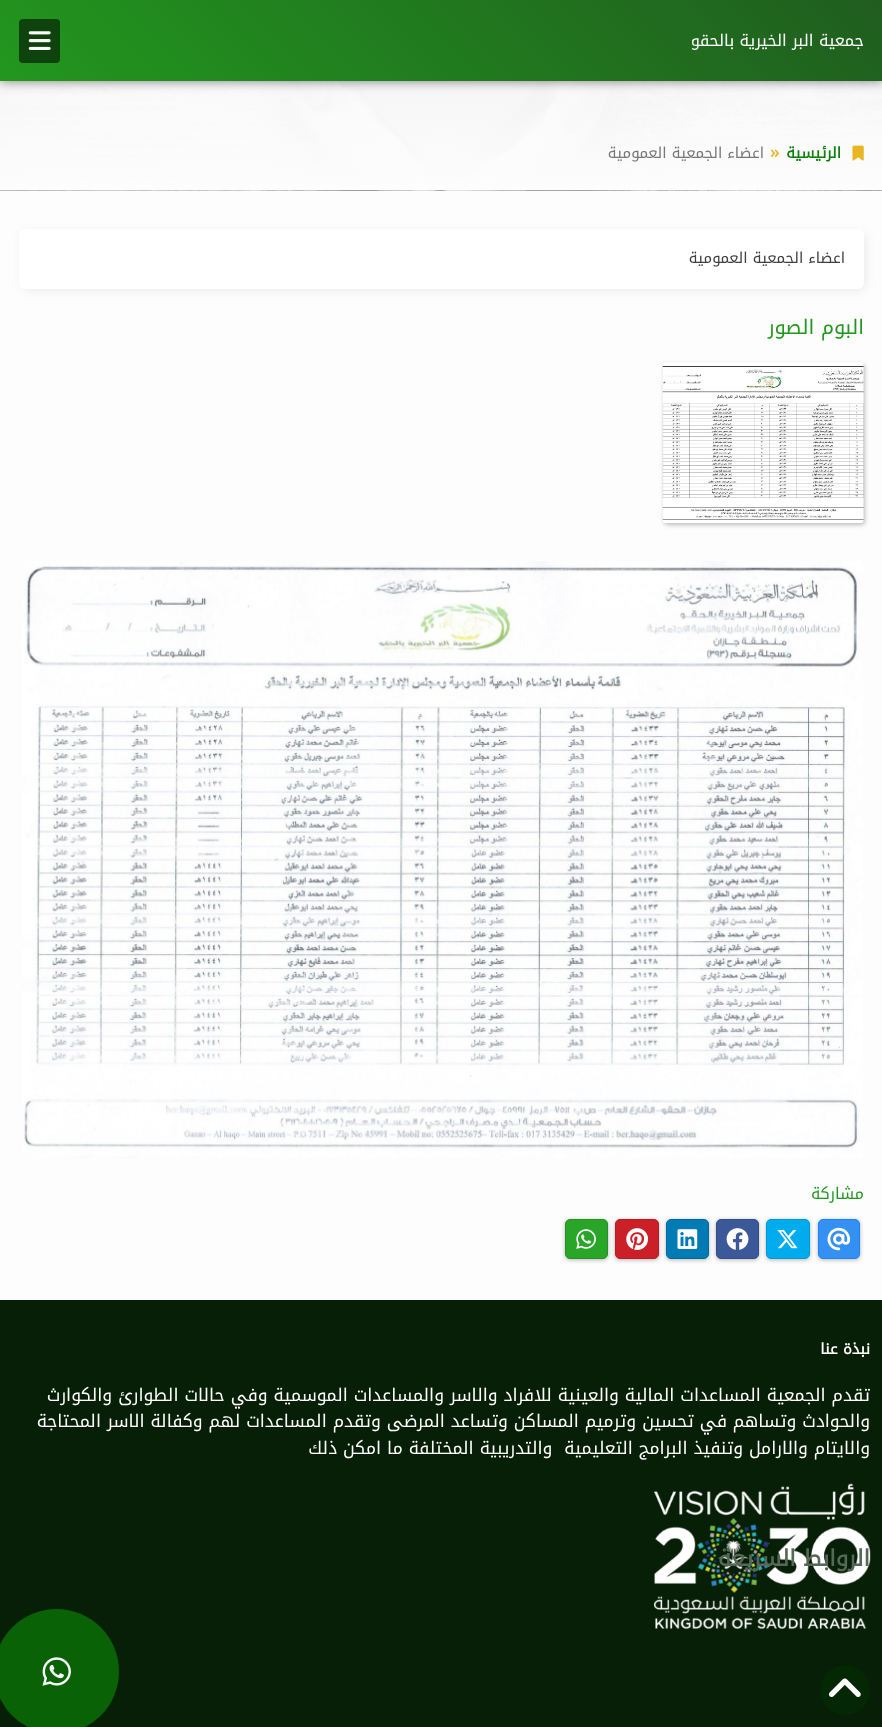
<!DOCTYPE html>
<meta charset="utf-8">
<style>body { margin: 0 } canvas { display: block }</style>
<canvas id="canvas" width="882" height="1727"></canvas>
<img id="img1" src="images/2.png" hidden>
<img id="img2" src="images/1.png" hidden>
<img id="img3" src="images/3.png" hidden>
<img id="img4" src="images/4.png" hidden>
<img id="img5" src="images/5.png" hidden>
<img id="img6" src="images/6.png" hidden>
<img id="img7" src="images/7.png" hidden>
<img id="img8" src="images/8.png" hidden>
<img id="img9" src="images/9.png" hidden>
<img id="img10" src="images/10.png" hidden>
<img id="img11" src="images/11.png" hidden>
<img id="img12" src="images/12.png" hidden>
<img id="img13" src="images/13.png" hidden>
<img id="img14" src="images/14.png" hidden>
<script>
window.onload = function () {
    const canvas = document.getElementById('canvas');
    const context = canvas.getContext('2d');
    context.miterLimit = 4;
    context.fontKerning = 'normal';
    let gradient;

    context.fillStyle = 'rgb(253, 253, 253)';
    context.fillRect(0, 0, 882, 1727);
    context.drawImage(document.getElementById('img1'), 0, 81, 882, 110);
    context.fillStyle = 'rgba(0, 0, 0, 0.5)';
    context.filter = 'blur(6px)';
    context.beginPath();
    context.rect(0, 0, 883, 81);
    context.fill();
    context.filter = 'none';
    gradient = context.createLinearGradient(200, 282, 682, -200);
    gradient.addColorStop(0, 'rgb(34, 151, 30)');
    gradient.addColorStop(1, 'rgb(32, 93, 31)');
    context.fillStyle = gradient;
    context.fillRect(0, 0, 882, 81);
    context.fillStyle = 'rgb(14, 67, 13)';
    context.beginPath();
    context.roundRect(19, 19, 41, 44, 4);
    context.fill();
    context.drawImage(document.getElementById('img2'), 28, 31, 23, 19);
    context.drawImage(document.getElementById('img3'), 852, 145, 12, 16);
    context.fillStyle = 'rgba(0, 0, 0, 0.1)';
    context.filter = 'blur(6px)';
    context.beginPath();
    context.roundRect(24, 234, 840, 55, 4);
    context.fill();
    context.filter = 'none';
    context.fillStyle = 'rgb(255, 255, 255)';
    context.beginPath();
    context.roundRect(19, 229, 845, 60, 6);
    context.fill();
    context.fillStyle = 'rgba(0, 0, 0, 0.25)';
    context.filter = 'blur(2px)';
    context.beginPath();
    context.roundRect(664, 364, 201, 161, 4);
    context.fill();
    context.filter = 'none';
    context.drawImage(document.getElementById('img4'), 662, 362, 202, 161);
    context.drawImage(document.getElementById('img5'), 22, 561, 841, 597);
    context.fillStyle = 'rgba(0, 0, 0, 0.15)';
    context.filter = 'blur(2px)';
    context.beginPath();
    context.roundRect(818, 1220, 42, 40, 5);
    context.fill();
    context.filter = 'none';
    context.filter = 'blur(2px)';
    context.beginPath();
    context.roundRect(818, 1220, 42, 40, 5);
    context.fill();
    context.filter = 'none';
    context.fillStyle = 'rgb(52, 144, 243)';
    context.beginPath();
    context.roundRect(818.5, 1219.5, 41, 39, 4.5);
    context.fill();
    context.strokeStyle = 'rgb(28, 131, 242)';
    context.stroke();
    context.drawImage(document.getElementById('img6'), 827, 1227, 23, 24);
    context.fillStyle = 'rgba(0, 0, 0, 0.15)';
    context.filter = 'blur(2px)';
    context.beginPath();
    context.roundRect(766, 1220, 44, 40, 5);
    context.fill();
    context.filter = 'none';
    context.filter = 'blur(2px)';
    context.beginPath();
    context.roundRect(766, 1220, 44, 40, 5);
    context.fill();
    context.filter = 'none';
    context.fillStyle = 'rgb(0, 172, 237)';
    context.beginPath();
    context.roundRect(766.5, 1219.5, 43, 39, 4.5);
    context.fill();
    context.strokeStyle = 'rgb(0, 153, 212)';
    context.stroke();
    context.drawImage(document.getElementById('img7'), 777, 1229, 21, 20);
    context.fillStyle = 'rgba(0, 0, 0, 0.15)';
    context.filter = 'blur(2px)';
    context.beginPath();
    context.roundRect(716, 1220, 43, 40, 5);
    context.fill();
    context.filter = 'none';
    context.filter = 'blur(2px)';
    context.beginPath();
    context.roundRect(716, 1220, 43, 40, 5);
    context.fill();
    context.filter = 'none';
    context.fillStyle = 'rgb(59, 89, 152)';
    context.beginPath();
    context.roundRect(716.5, 1219.5, 42, 39, 4.5);
    context.fill();
    context.strokeStyle = 'rgb(52, 78, 134)';
    context.stroke();
    context.drawImage(document.getElementById('img8'), 726, 1228, 23, 22);
    context.fillStyle = 'rgba(0, 0, 0, 0.15)';
    context.filter = 'blur(2px)';
    context.beginPath();
    context.roundRect(666, 1220, 43, 40, 5);
    context.fill();
    context.filter = 'none';
    context.filter = 'blur(2px)';
    context.beginPath();
    context.roundRect(666, 1220, 43, 40, 5);
    context.fill();
    context.filter = 'none';
    context.fillStyle = 'rgb(0, 123, 182)';
    context.beginPath();
    context.roundRect(666.5, 1219.5, 42, 39, 4.5);
    context.fill();
    context.strokeStyle = 'rgb(0, 106, 157)';
    context.stroke();
    context.drawImage(document.getElementById('img9'), 677, 1229, 21, 20);
    context.fillStyle = 'rgba(0, 0, 0, 0.15)';
    context.filter = 'blur(2px)';
    context.beginPath();
    context.roundRect(615, 1220, 44, 40, 5);
    context.fill();
    context.filter = 'none';
    context.filter = 'blur(2px)';
    context.beginPath();
    context.roundRect(615, 1220, 44, 40, 5);
    context.fill();
    context.filter = 'none';
    context.fillStyle = 'rgb(203, 32, 39)';
    context.beginPath();
    context.roundRect(615.5, 1219.5, 43, 39, 4.5);
    context.fill();
    context.strokeStyle = 'rgb(181, 29, 35)';
    context.stroke();
    context.drawImage(document.getElementById('img10'), 626, 1228, 22, 22);
    context.fillStyle = 'rgba(0, 0, 0, 0.15)';
    context.filter = 'blur(2px)';
    context.beginPath();
    context.roundRect(565, 1220, 43, 40, 5);
    context.fill();
    context.filter = 'none';
    context.filter = 'blur(2px)';
    context.beginPath();
    context.roundRect(565, 1220, 43, 40, 5);
    context.fill();
    context.filter = 'none';
    context.fillStyle = 'rgb(41, 166, 40)';
    context.beginPath();
    context.roundRect(565.5, 1219.5, 42, 39, 4.5);
    context.fill();
    context.strokeStyle = 'rgb(36, 145, 35)';
    context.stroke();
    context.drawImage(document.getElementById('img11'), 576, 1229, 20, 20);
    context.fillStyle = 'rgb(7, 31, 6)';
    context.fillRect(0, 1300, 882, 427);
    context.drawImage(document.getElementById('img12'), 654, 1483, 217, 146);
    context.fillStyle = 'rgb(4, 40, 3)';
    context.beginPath();
    context.arc(845, 1690, 25, 0, 2 * Math.PI);
    context.fill();
    context.drawImage(document.getElementById('img13'), 828, 1678, 33, 19);
    context.fillStyle = 'rgb(10, 98, 6)';
    context.beginPath();
    context.arc(56.5, 1671.5, 62.5, 0, 2 * Math.PI);
    context.fill();
    context.drawImage(document.getElementById('img14'), 42, 1657, 29, 29);
    context.direction = 'rtl';
    context.font = '16.25px Noto Kufi Arabic';
    context.fillStyle = 'rgb(255, 255, 255)';
    context.fillText('جمعية البر الخيرية بالحقو', 864, 46);
    context.font = 'bold 15px Noto Kufi Arabic';
    context.fillStyle = 'rgb(15, 127, 11)';
    context.fillText('الرئيسية', 841, 158);
    context.direction = 'ltr';
    context.font = '600 17.5px Open Sans';
    context.fillStyle = 'rgb(232, 181, 35)';
    context.fillText('»', 770, 158);
    context.direction = 'rtl';
    context.font = '15px Noto Kufi Arabic';
    context.fillStyle = 'rgb(119, 119, 119)';
    context.fillText('اعضاء الجمعية العمومية', 764, 158);
    context.fillStyle = 'rgb(64, 64, 64)';
    context.fillText('اعضاء الجمعية العمومية', 845, 263);
    context.font = '20px Noto Kufi Arabic';
    context.fillStyle = 'rgb(34, 151, 30)';
    context.fillText('البوم الصور', 864, 334);
    context.font = '16px Noto Kufi Arabic';
    context.fillText('مشاركة', 864, 1199);
    context.font = 'bold 15px Noto Kufi Arabic';
    context.fillStyle = 'rgb(255, 255, 255)';
    context.fillText('نبذة عنا', 870, 1354);
    context.font = '17.5px Noto Kufi Arabic';
    context.fillText('تقدم الجمعية المساعدات المالية والعينية للافراد والاسر والمساعدات الموسمية وفي حالات الطوارئ والكوارث', 870, 1401);
    context.fillText('والحوادث وتساهم في تحسين وترميم المساكن وتساعد المرضى وتقدم المساعدات لهم وكفالة الاسر المحتاجة', 870, 1427);
    context.fillText('والايتام والارامل وتنفيذ البرامج التعليمية  والتدريبية المختلفة ما امكن ذلك', 870, 1454);
    context.font = 'bold 22.5px Noto Kufi Arabic';
    context.fillStyle = 'rgb(85, 104, 88)';
    context.fillText('الروابط السريعة', 870, 1566);
};
</script>
